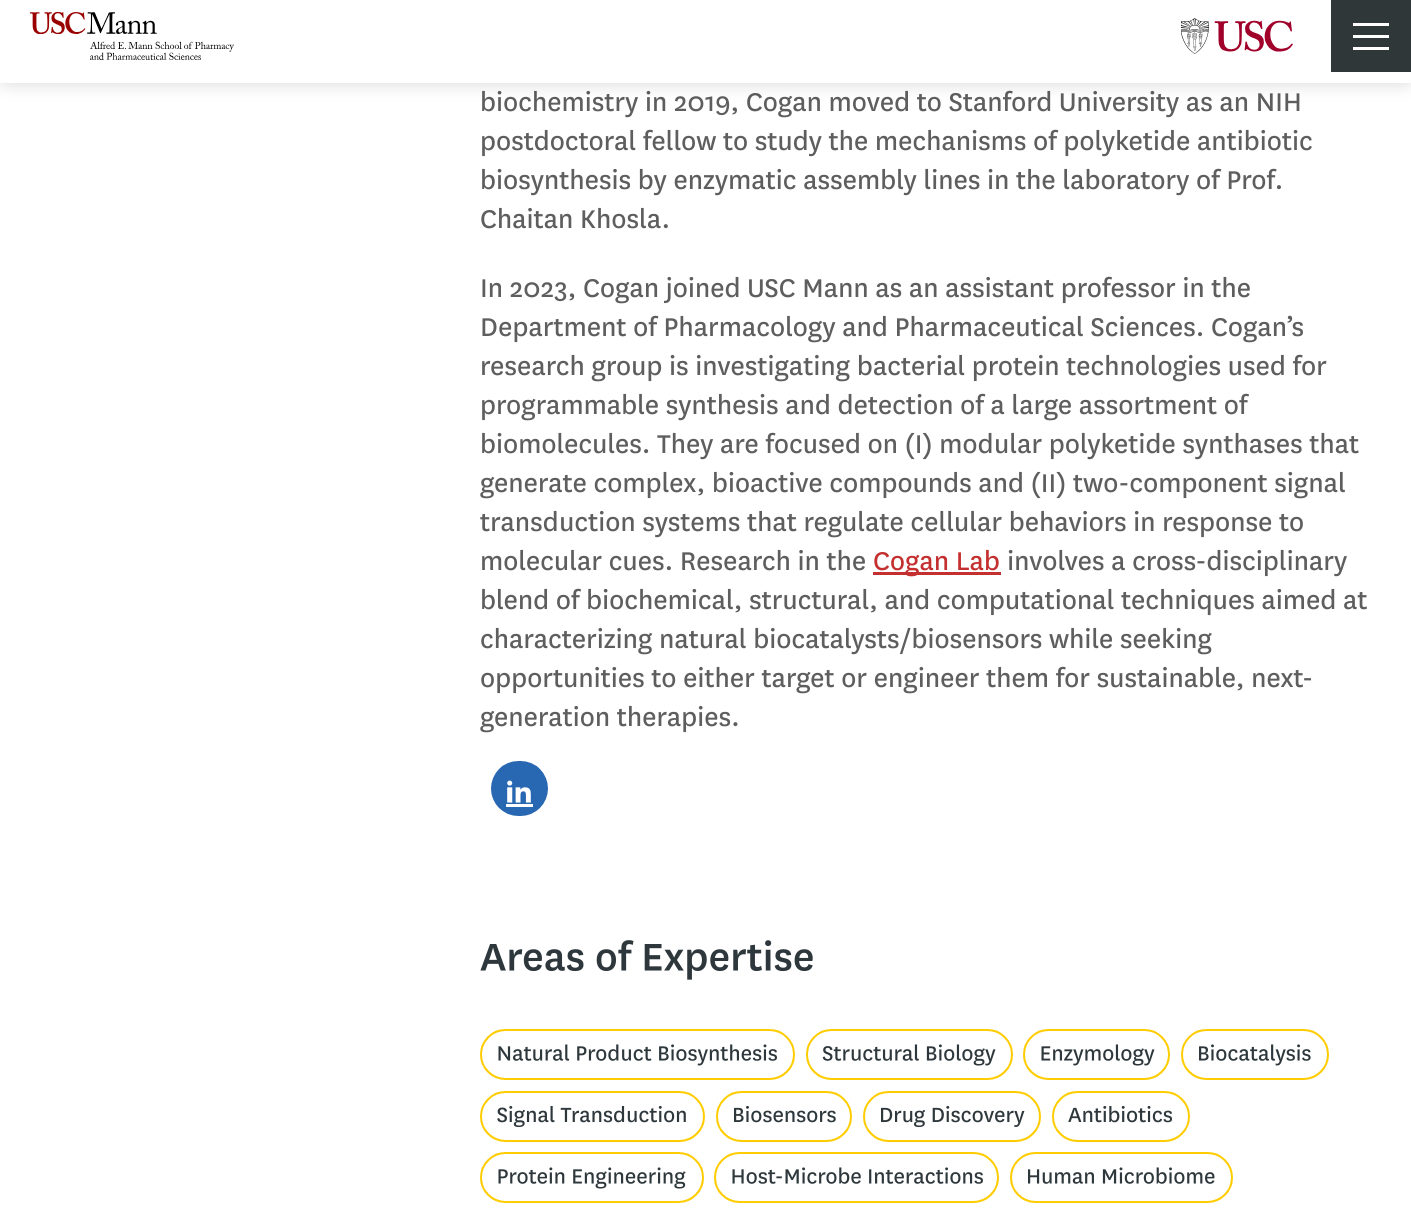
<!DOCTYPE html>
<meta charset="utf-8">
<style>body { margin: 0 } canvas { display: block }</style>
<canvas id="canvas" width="1411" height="1231"></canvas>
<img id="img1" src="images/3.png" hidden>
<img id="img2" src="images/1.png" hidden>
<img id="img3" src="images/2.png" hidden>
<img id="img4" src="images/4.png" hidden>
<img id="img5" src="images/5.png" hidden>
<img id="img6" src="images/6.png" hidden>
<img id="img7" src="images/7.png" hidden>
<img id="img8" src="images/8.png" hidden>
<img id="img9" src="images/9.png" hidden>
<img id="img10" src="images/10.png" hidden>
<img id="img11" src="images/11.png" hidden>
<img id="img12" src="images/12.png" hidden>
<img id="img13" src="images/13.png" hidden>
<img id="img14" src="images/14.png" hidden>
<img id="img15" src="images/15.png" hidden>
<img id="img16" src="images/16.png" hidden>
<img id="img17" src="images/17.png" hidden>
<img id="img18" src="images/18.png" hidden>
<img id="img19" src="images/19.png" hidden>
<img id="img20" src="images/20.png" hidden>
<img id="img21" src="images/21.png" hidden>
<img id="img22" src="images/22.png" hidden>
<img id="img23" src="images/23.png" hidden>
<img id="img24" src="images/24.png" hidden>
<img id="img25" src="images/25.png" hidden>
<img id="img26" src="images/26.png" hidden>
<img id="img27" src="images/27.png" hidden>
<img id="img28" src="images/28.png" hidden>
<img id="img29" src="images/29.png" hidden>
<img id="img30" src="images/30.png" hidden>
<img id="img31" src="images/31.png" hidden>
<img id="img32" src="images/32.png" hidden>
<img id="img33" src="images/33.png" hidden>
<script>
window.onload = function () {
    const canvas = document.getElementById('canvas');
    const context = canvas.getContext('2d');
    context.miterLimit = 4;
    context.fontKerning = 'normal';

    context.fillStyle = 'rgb(255, 255, 255)';
    context.fillRect(0, 0, 1411, 1231);
    context.drawImage(document.getElementById('img1'), 482, 90, 818, 28);
    context.fillStyle = 'rgba(0, 0, 0, 0.12)';
    context.filter = 'blur(7.5px)';
    context.beginPath();
    context.rect(0, 3, 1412, 83);
    context.fill();
    context.filter = 'none';
    context.fillStyle = 'rgb(255, 255, 255)';
    context.fillRect(0, 0, 1411, 83);
    context.drawImage(document.getElementById('img2'), 30, 12, 204, 48);
    context.drawImage(document.getElementById('img3'), 1181, 18, 112, 36);
    context.fillStyle = 'rgb(48, 55, 57)';
    context.fillRect(1331, 0, 80, 72);
    context.fillStyle = 'rgb(255, 255, 255)';
    context.fillRect(1353, 23, 36, 3);
    context.fillRect(1353, 35, 36, 3);
    context.fillRect(1353, 47, 36, 3);
    context.drawImage(document.getElementById('img4'), 482, 129, 830, 28);
    context.drawImage(document.getElementById('img5'), 482, 168, 799, 28);
    context.drawImage(document.getElementById('img6'), 481, 207, 187, 22);
    context.drawImage(document.getElementById('img7'), 482, 276, 768, 28);
    context.drawImage(document.getElementById('img8'), 482, 315, 821, 28);
    context.drawImage(document.getElementById('img9'), 482, 354, 845, 28);
    context.drawImage(document.getElementById('img10'), 482, 393, 767, 28);
    context.drawImage(document.getElementById('img11'), 482, 432, 877, 28);
    context.drawImage(document.getElementById('img12'), 480, 471, 865, 28);
    context.drawImage(document.getElementById('img13'), 480, 510, 823, 28);
    context.drawImage(document.getElementById('img14'), 482, 549, 383, 22);
    context.fillStyle = 'rgb(196, 47, 47)';
    context.fillRect(873, 572, 128, 3);
    context.drawImage(document.getElementById('img15'), 874, 549, 125, 28);
    context.drawImage(document.getElementById('img16'), 1008, 549, 339, 28);
    context.drawImage(document.getElementById('img17'), 482, 588, 885, 28);
    context.drawImage(document.getElementById('img18'), 481, 627, 731, 28);
    context.drawImage(document.getElementById('img19'), 481, 666, 831, 28);
    context.drawImage(document.getElementById('img20'), 480, 705, 258, 28);
    context.fillStyle = 'rgb(40, 103, 178)';
    context.beginPath();
    context.roundRect(491, 761, 57, 55, 27.5);
    context.fill();
    context.drawImage(document.getElementById('img21'), 507, 780, 24, 23);
    context.fillStyle = 'rgb(255, 255, 255)';
    context.fillRect(506, 804, 27, 3);
    context.drawImage(document.getElementById('img22'), 480, 940, 333, 40);
    context.beginPath();
    context.roundRect(481, 1030, 313, 49, 24.5);
    context.strokeStyle = 'rgb(255, 204, 0)';
    context.lineWidth = 2;
    context.stroke();
    context.drawImage(document.getElementById('img23'), 498, 1044, 279, 22);
    context.beginPath();
    context.roundRect(807, 1030, 205, 49, 24.5);
    context.stroke();
    context.drawImage(document.getElementById('img24'), 822, 1044, 174, 22);
    context.beginPath();
    context.roundRect(1024, 1030, 145, 49, 24.5);
    context.stroke();
    context.drawImage(document.getElementById('img25'), 1041, 1044, 114, 22);
    context.beginPath();
    context.roundRect(1182, 1030, 146, 49, 24.5);
    context.stroke();
    context.drawImage(document.getElementById('img26'), 1199, 1044, 112, 22);
    context.beginPath();
    context.roundRect(481, 1092, 223, 49, 24.5);
    context.stroke();
    context.drawImage(document.getElementById('img27'), 497, 1105, 189, 23);
    context.beginPath();
    context.roundRect(717, 1092, 134, 49, 24.5);
    context.stroke();
    context.drawImage(document.getElementById('img28'), 734, 1105, 102, 18);
    context.beginPath();
    context.roundRect(864, 1092, 176, 49, 24.5);
    context.stroke();
    context.drawImage(document.getElementById('img29'), 881, 1105, 144, 23);
    context.beginPath();
    context.roundRect(1053, 1092, 136, 49, 24.5);
    context.stroke();
    context.drawImage(document.getElementById('img30'), 1068, 1105, 104, 18);
    context.beginPath();
    context.roundRect(481, 1153, 222, 49, 24.5);
    context.stroke();
    context.drawImage(document.getElementById('img31'), 498, 1167, 188, 22);
    context.beginPath();
    context.roundRect(715, 1153, 283, 49, 24.5);
    context.stroke();
    context.drawImage(document.getElementById('img32'), 732, 1167, 251, 17);
    context.beginPath();
    context.roundRect(1011, 1153, 221, 49, 24.5);
    context.stroke();
    context.drawImage(document.getElementById('img33'), 1028, 1167, 187, 17);
};
</script>
